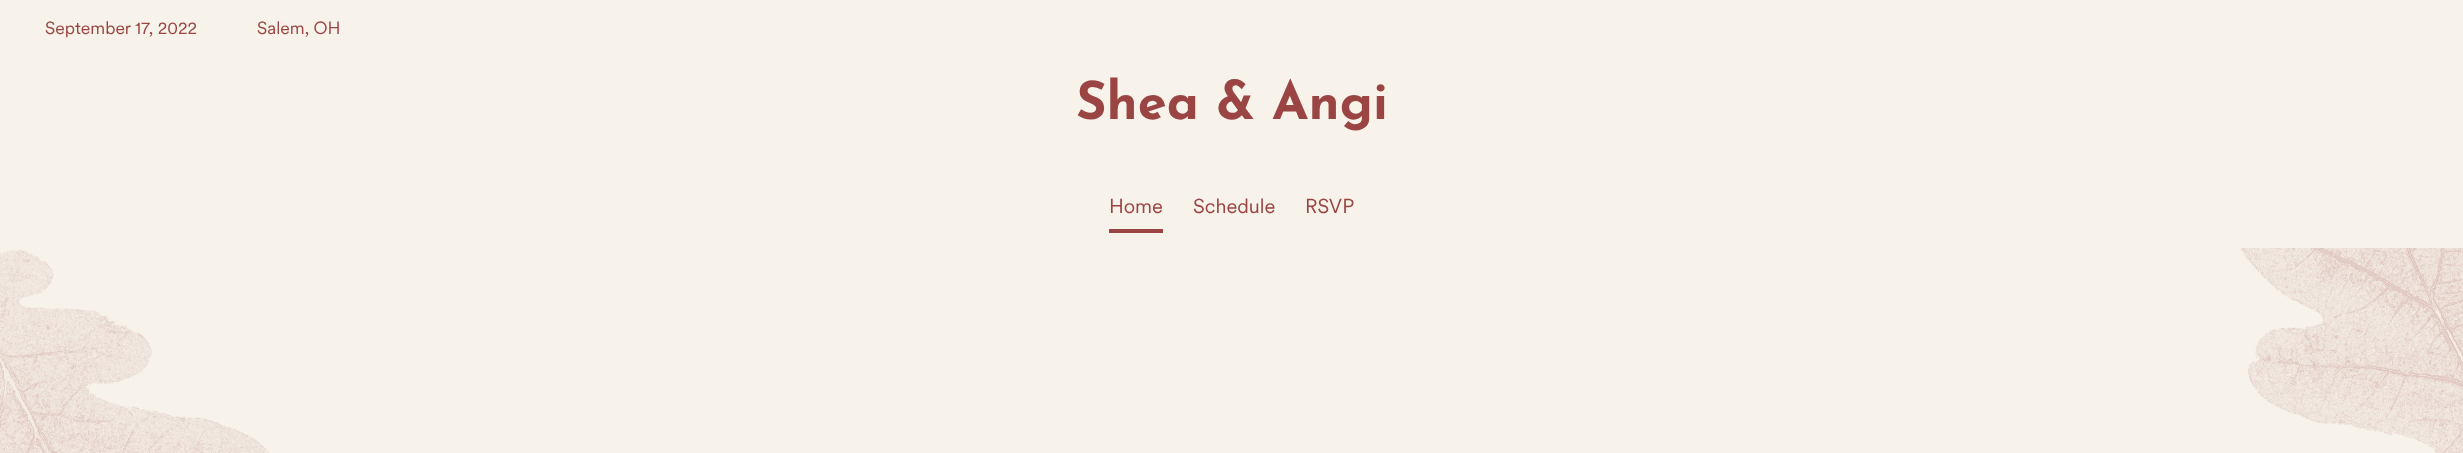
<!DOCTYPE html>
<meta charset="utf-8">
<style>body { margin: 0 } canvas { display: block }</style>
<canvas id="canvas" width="2463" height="453"></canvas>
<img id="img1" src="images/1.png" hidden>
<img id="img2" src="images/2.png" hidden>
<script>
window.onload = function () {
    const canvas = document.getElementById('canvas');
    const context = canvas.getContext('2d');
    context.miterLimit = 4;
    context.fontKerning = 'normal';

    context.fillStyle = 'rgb(247, 243, 234)';
    context.fillRect(0, 0, 2463, 453);
    context.fillStyle = 'rgb(154, 69, 68)';
    context.fillRect(1109, 229, 54, 4);
    context.drawImage(document.getElementById('img1'), 0, 249, 269, 204);
    context.drawImage(document.getElementById('img2'), 2240, 248, 223, 205);
    context.font = '17.5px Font';
    context.fillText('September 17, 2022', 45, 34);
    context.fillText('Salem, OH', 257, 34);
    context.font = 'bold 52.5px Josefin Sans';
    context.fillText('Shea & Angi', 1076, 119);
    context.font = '20px Font';
    context.fillText('Home', 1109, 213);
    context.fillText('Schedule', 1193, 213);
    context.fillText('RSVP', 1305, 213);
};
</script>
